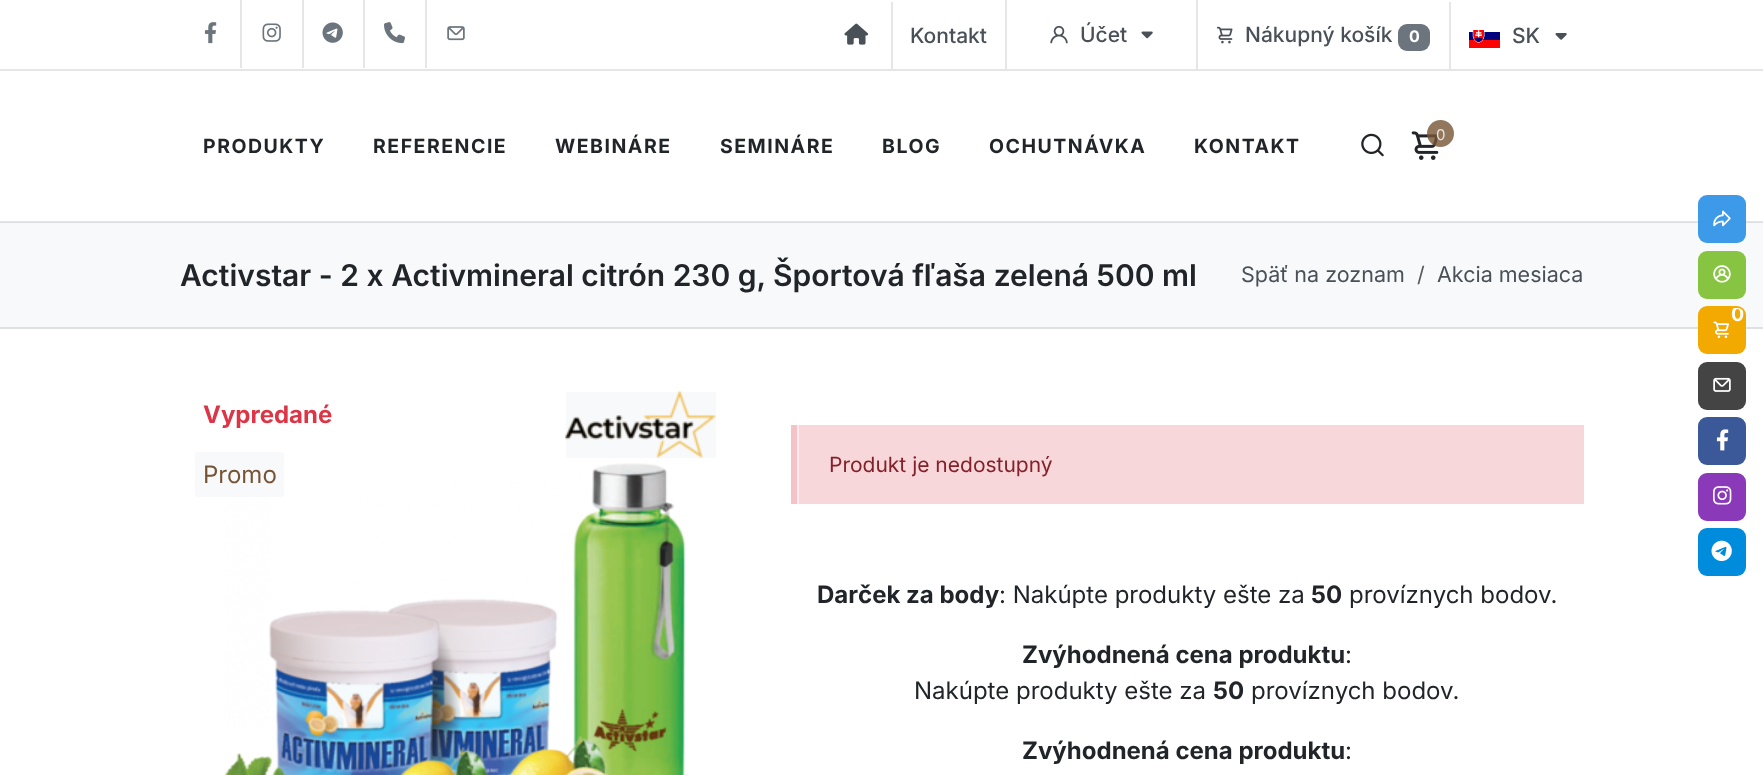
<!DOCTYPE html>
<meta charset="utf-8">
<style>body { margin: 0 } canvas { display: block }</style>
<canvas id="canvas" width="1763" height="775"></canvas>
<img id="img1" src="images/1.png" hidden>
<img id="img2" src="images/2.png" hidden>
<img id="img3" src="images/3.png" hidden>
<img id="img4" src="images/4.png" hidden>
<img id="img5" src="images/5.png" hidden>
<img id="img6" src="images/6.png" hidden>
<img id="img7" src="images/7.png" hidden>
<img id="img8" src="images/8.png" hidden>
<img id="img9" src="images/9.png" hidden>
<img id="img10" src="images/10.png" hidden>
<img id="img11" src="images/11.png" hidden>
<img id="img12" src="images/12.png" hidden>
<img id="img13" src="images/13.png" hidden>
<img id="img14" src="images/15.png" hidden>
<img id="img15" src="images/14.png" hidden>
<img id="img16" src="images/16.png" hidden>
<img id="img17" src="images/17.png" hidden>
<img id="img18" src="images/18.png" hidden>
<img id="img19" src="images/19.png" hidden>
<img id="img20" src="images/20.png" hidden>
<img id="img21" src="images/21.png" hidden>
<img id="img22" src="images/22.png" hidden>
<script>
window.onload = function () {
    const canvas = document.getElementById('canvas');
    const context = canvas.getContext('2d');
    context.miterLimit = 4;
    context.fontKerning = 'normal';

    context.fillStyle = 'rgb(255, 255, 255)';
    context.fillRect(0, 0, 1763, 775);
    context.fillStyle = 'rgb(230, 230, 230)';
    context.fillRect(0, 69, 1763, 2);
    context.drawImage(document.getElementById('img1'), 204, 22, 13, 22);
    context.fillRect(240, 0, 2, 68);
    context.drawImage(document.getElementById('img2'), 262, 23, 19, 19);
    context.fillRect(302, 0, 2, 68);
    context.drawImage(document.getElementById('img3'), 322, 22, 21, 21);
    context.fillRect(363, 0, 2, 68);
    context.drawImage(document.getElementById('img4'), 384, 22, 21, 22);
    context.fillRect(425, 0, 2, 68);
    context.drawImage(document.getElementById('img5'), 447, 26, 18, 15);
    context.drawImage(document.getElementById('img6'), 844, 23, 25, 22);
    context.fillRect(891, 2, 2, 67);
    context.fillRect(1005, 0, 2, 69);
    context.drawImage(document.getElementById('img7'), 1050, 25, 18, 19);
    context.drawImage(document.getElementById('img8'), 1141, 31, 12, 8);
    context.fillRect(1196, 0, 2, 69);
    context.drawImage(document.getElementById('img9'), 1216, 26, 17, 18);
    context.fillStyle = 'rgb(108, 117, 125)';
    context.beginPath();
    context.roundRect(1398, 24, 32, 27, 9);
    context.fill();
    context.fillStyle = 'rgb(230, 230, 230)';
    context.fillRect(1449, 2, 2, 67);
    context.drawImage(document.getElementById('img10'), 1469, 30, 31, 18);
    context.drawImage(document.getElementById('img11'), 1555, 33, 12, 7);
    context.fillStyle = 'rgb(248, 249, 250)';
    context.fillRect(0, 222, 1763, 105);
    context.fillStyle = 'rgba(0, 0, 0, 0.1)';
    context.fillRect(0, 221, 1763, 2);
    context.drawImage(document.getElementById('img12'), 1361, 133, 23, 24);
    context.drawImage(document.getElementById('img13'), 1411, 131, 28, 29);
    context.fillStyle = 'rgba(119, 85, 52, 0.8)';
    context.beginPath();
    context.arc(1440.5, 133.5, 13.5, 0, 2 * Math.PI);
    context.fill();
    context.fillStyle = 'rgb(223, 224, 225)';
    context.fillRect(0, 327, 1763, 2);
    context.drawImage(document.getElementById('img14'), 224, 463, 462, 312);
    context.fillStyle = 'rgb(248, 249, 250)';
    context.beginPath();
    context.roundRect(195, 452, 89, 45, 3);
    context.fill();
    context.fillRect(566, 392, 150, 66);
    context.drawImage(document.getElementById('img15'), 565, 391, 151, 67);
    context.fillStyle = 'rgb(248, 215, 218)';
    context.fillRect(799, 425, 785, 79);
    context.fillStyle = 'rgb(245, 194, 199)';
    context.fillRect(791, 425, 6, 79);
    context.fillStyle = 'rgb(252, 235, 237)';
    context.fillRect(797, 425, 2, 79);
    context.fillStyle = 'rgb(61, 154, 232)';
    context.beginPath();
    context.roundRect(1698, 195, 48, 48, 9);
    context.fill();
    context.drawImage(document.getElementById('img16'), 1713, 210, 18, 17);
    context.fillStyle = 'rgb(135, 196, 66)';
    context.beginPath();
    context.roundRect(1698, 251, 48, 48, 9);
    context.fill();
    context.drawImage(document.getElementById('img17'), 1713, 265, 18, 18);
    context.fillStyle = 'rgb(242, 169, 0)';
    context.beginPath();
    context.roundRect(1698, 306, 48, 48, 9);
    context.fill();
    context.drawImage(document.getElementById('img18'), 1713, 321, 16, 18);
    context.fillStyle = 'rgb(68, 68, 68)';
    context.beginPath();
    context.roundRect(1698, 362, 48, 48, 9);
    context.fill();
    context.drawImage(document.getElementById('img19'), 1713, 377, 18, 15);
    context.fillStyle = 'rgb(59, 89, 152)';
    context.beginPath();
    context.roundRect(1698, 417, 48, 48, 9);
    context.fill();
    context.drawImage(document.getElementById('img20'), 1716, 429, 13, 22);
    context.fillStyle = 'rgb(138, 58, 185)';
    context.beginPath();
    context.roundRect(1698, 473, 48, 48, 9);
    context.fill();
    context.drawImage(document.getElementById('img21'), 1713, 486, 19, 19);
    context.fillStyle = 'rgb(0, 140, 221)';
    context.beginPath();
    context.roundRect(1698, 528, 48, 48, 9);
    context.fill();
    context.drawImage(document.getElementById('img22'), 1711, 540, 21, 22);
    context.font = '500 21px Inter';
    context.fillStyle = 'rgb(73, 80, 87)';
    context.fillText('Kontakt', 910, 43);
    context.fillText('Účet', 1080, 42);
    context.fillText('Nákupný košík', 1245, 42);
    context.font = 'bold 16px Inter';
    context.fillStyle = 'rgb(255, 255, 255)';
    context.fillText('0', 1409, 42);
    context.font = '500 21px Inter';
    context.fillStyle = 'rgb(73, 80, 87)';
    context.fillText('SK', 1512, 43);
    context.letterSpacing = '1.5px';
    context.font = 'bold 19.5px Inter';
    context.fillStyle = 'rgb(33, 37, 41)';
    context.fillText('PRODUKTY', 203, 153);
    context.fillText('REFERENCIE', 373, 153);
    context.fillText('WEBINÁRE', 555, 153);
    context.fillText('SEMINÁRE', 720, 153);
    context.fillText('BLOG', 882, 153);
    context.fillText('OCHUTNÁVKA', 989, 153);
    context.fillText('KONTAKT', 1194, 153);
    context.letterSpacing = '0px';
    context.font = '15px Inter';
    context.fillStyle = 'rgb(232, 227, 221)';
    context.fillText('0', 1436, 140);
    context.font = '600 30px Inter';
    context.fillStyle = 'rgb(33, 37, 41)';
    context.fillText('Activstar - 2 x Activmineral citrón 230 g, Športová fľaša zelená 500 ml', 180, 286);
    context.font = '21.5px Inter';
    context.fillStyle = 'rgb(73, 80, 87)';
    context.fillText('Späť na zoznam', 1241, 282);
    context.fillStyle = 'rgb(87, 90, 93)';
    context.fillText('/', 1417, 282);
    context.fillStyle = 'rgb(73, 80, 87)';
    context.fillText('Akcia mesiaca', 1437, 282);
    context.font = 'bold 24px Inter';
    context.fillStyle = 'rgb(220, 53, 69)';
    context.fillText('Vypredané', 203, 423);
    context.font = '24px Inter';
    context.fillStyle = 'rgb(119, 85, 52)';
    context.fillText('Promo', 203, 483);
    context.font = '21px Inter';
    context.fillStyle = 'rgb(132, 32, 41)';
    context.fillText('Produkt je nedostupný', 829, 472);
    context.font = 'bold 24px Inter';
    context.fillStyle = 'rgb(33, 37, 41)';
    context.fillText('Darček za body', 817, 603);
    context.font = '24px Inter';
    context.fillText(': Nakúpte produkty ešte za', 999, 603);
    context.font = 'bold 24px Inter';
    context.fillText('50', 1311, 603);
    context.font = '24px Inter';
    context.fillText('províznych bodov.', 1349, 603);
    context.font = 'bold 24px Inter';
    context.fillText('Zvýhodnená cena produktu', 1022, 663);
    context.font = '24px Inter';
    context.fillText(':', 1345, 663);
    context.fillText('Nakúpte produkty ešte za', 914, 699);
    context.font = 'bold 24px Inter';
    context.fillText('50', 1213, 699);
    context.font = '24px Inter';
    context.fillText('províznych bodov.', 1251, 699);
    context.font = 'bold 24px Inter';
    context.fillText('Zvýhodnená cena produktu', 1022, 759);
    context.font = '24px Inter';
    context.fillText(':', 1345, 759);
    context.save();
    context.beginPath();
    context.roundRect(1700, 308, 45, 45, 8);
    context.clip();
    context.font = 'bold 19.5px Inter';
    context.fillStyle = 'rgb(255, 255, 255)';
    context.fillText('0', 1731, 321);
    context.restore();
};
</script>
